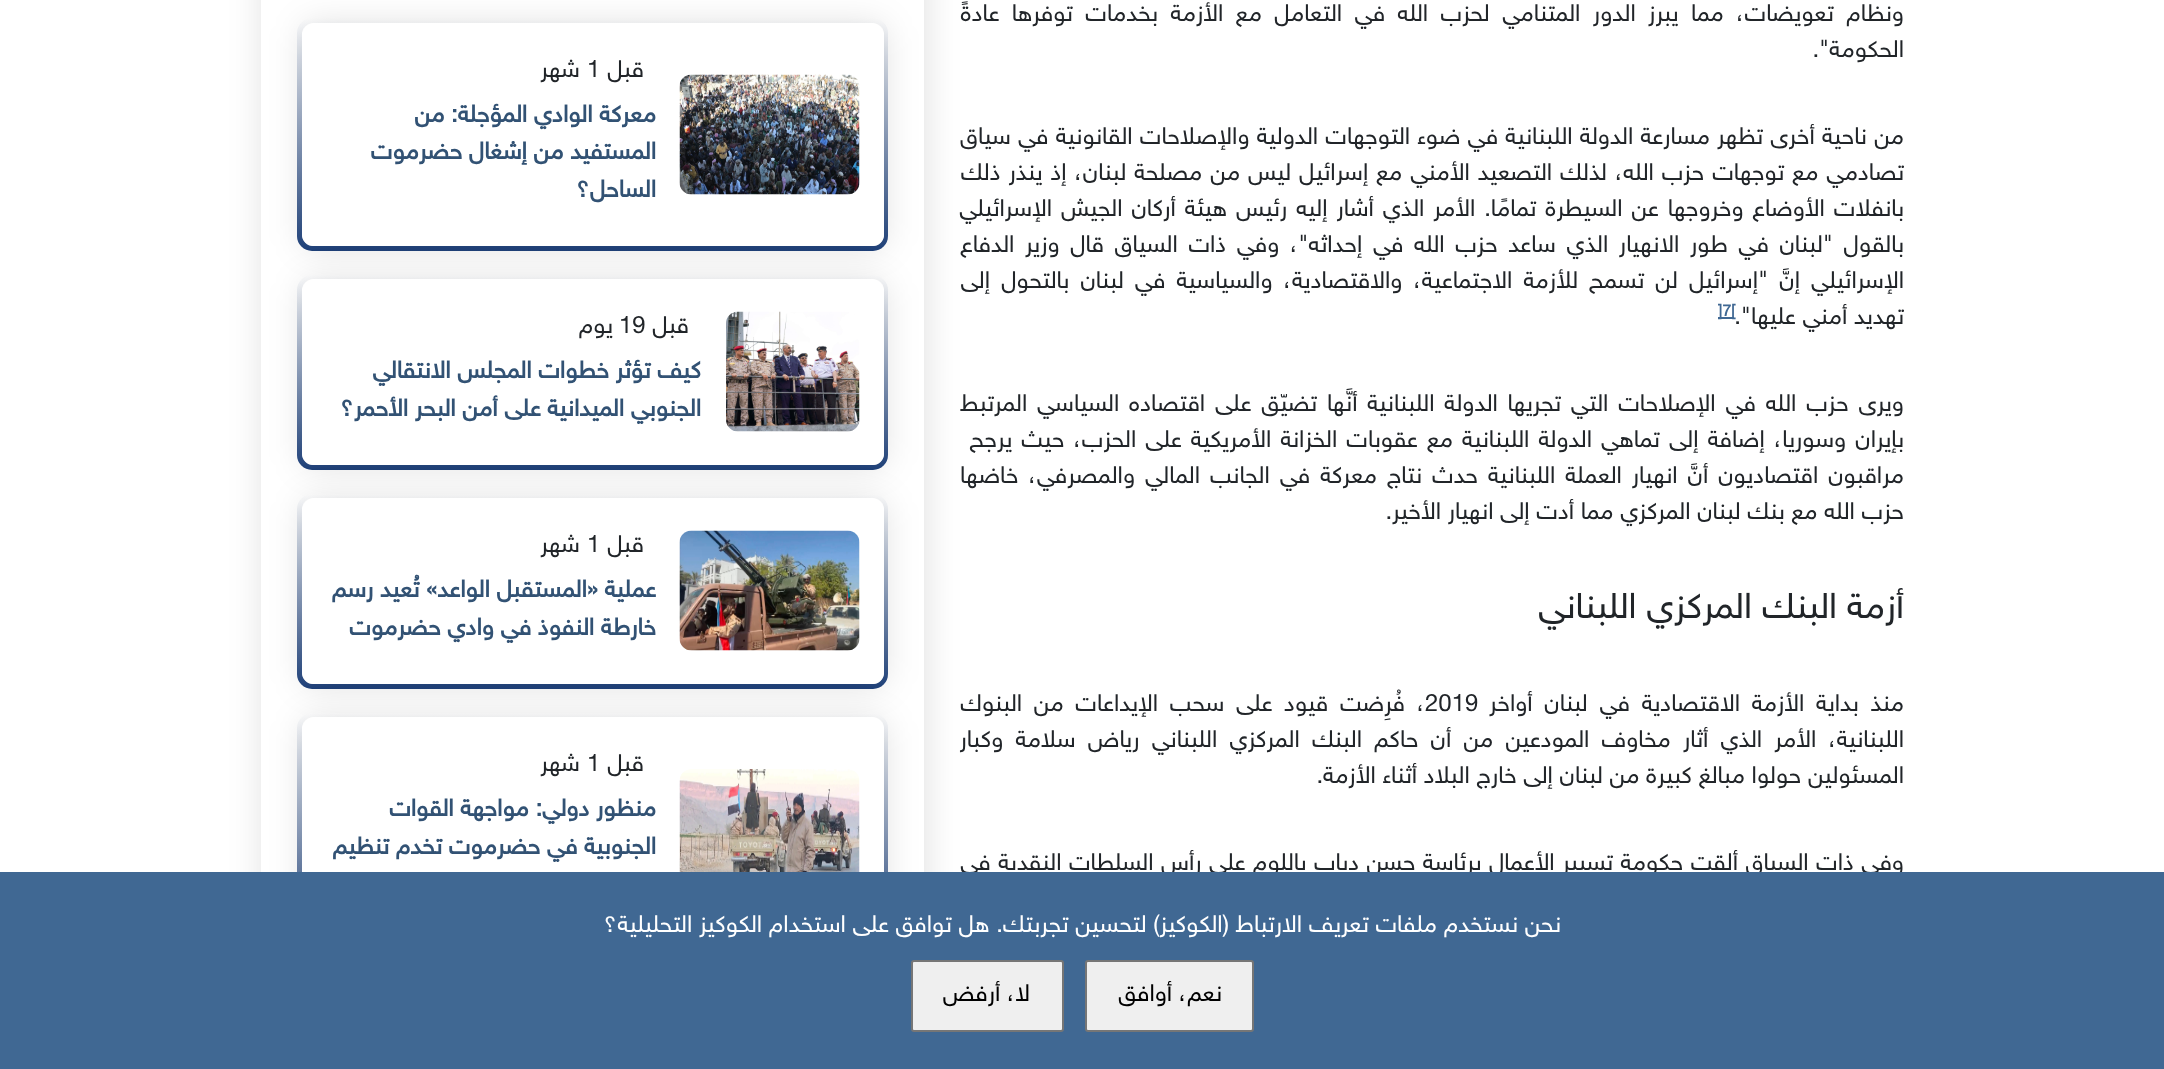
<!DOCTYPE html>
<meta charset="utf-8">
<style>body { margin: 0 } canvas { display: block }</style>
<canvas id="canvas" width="2164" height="1069"></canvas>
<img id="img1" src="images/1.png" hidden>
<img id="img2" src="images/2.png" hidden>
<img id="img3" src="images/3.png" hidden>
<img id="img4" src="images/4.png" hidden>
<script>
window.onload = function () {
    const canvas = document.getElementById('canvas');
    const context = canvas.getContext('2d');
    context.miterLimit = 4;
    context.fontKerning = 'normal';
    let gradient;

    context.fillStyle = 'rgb(255, 255, 255)';
    context.fillRect(0, 0, 2164, 1069);
    context.fillStyle = 'rgb(64, 104, 147)';
    context.fillRect(1718, 317, 16, 2);
    context.save();
    context.beginPath();
    context.moveTo(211, 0);
    context.lineTo(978, 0);
    context.lineTo(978, 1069);
    context.lineTo(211, 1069);
    context.closePath();
    context.moveTo(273, -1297);
    context.lineTo(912, -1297);
    context.bezierCurveTo(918.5, -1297, 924, -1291.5, 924, -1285);
    context.lineTo(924, 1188);
    context.bezierCurveTo(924, 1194.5, 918.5, 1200, 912, 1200);
    context.lineTo(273, 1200);
    context.bezierCurveTo(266.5, 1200, 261, 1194.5, 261, 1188);
    context.lineTo(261, -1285);
    context.bezierCurveTo(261, -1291.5, 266.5, -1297, 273, -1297);
    context.closePath();
    context.clip('evenodd');
    context.fillStyle = 'rgba(0, 0, 0, 0.12)';
    context.filter = 'blur(17px)';
    context.beginPath();
    context.roundRect(263, -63, 663, 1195, 12);
    context.fill();
    context.filter = 'none';
    context.restore();
    gradient = context.createLinearGradient(593, 18, 593, 251);
    gradient.addColorStop(0, 'rgb(255, 255, 255)');
    gradient.addColorStop(1, 'rgb(32, 67, 125)');
    context.fillStyle = gradient;
    context.beginPath();
    context.roundRect(297, 18, 591, 233, 15);
    context.fill();
    context.fillStyle = 'rgb(255, 255, 255)';
    context.beginPath();
    context.roundRect(302, 23, 582, 223, 11);
    context.fill();
    context.fillStyle = 'rgba(0, 0, 0, 0.12)';
    context.filter = 'blur(17px)';
    context.beginPath();
    context.roundRect(303, 24, 582, 224, 12);
    context.fill();
    context.filter = 'none';
    context.fillStyle = 'rgb(255, 255, 255)';
    context.beginPath();
    context.roundRect(302, 23, 582, 223, 12);
    context.fill();
    context.drawImage(document.getElementById('img1'), 679, 74, 181, 121);
    gradient = context.createLinearGradient(593, 274, 593, 470);
    gradient.addColorStop(0, 'rgb(255, 255, 255)');
    gradient.addColorStop(1, 'rgb(32, 67, 125)');
    context.fillStyle = gradient;
    context.beginPath();
    context.roundRect(297, 275, 591, 195, 15);
    context.fill();
    context.fillStyle = 'rgb(255, 255, 255)';
    context.beginPath();
    context.roundRect(302, 279, 582, 186, 11);
    context.fill();
    context.fillStyle = 'rgba(0, 0, 0, 0.12)';
    context.filter = 'blur(17px)';
    context.beginPath();
    context.roundRect(303, 281, 582, 186, 12);
    context.fill();
    context.filter = 'none';
    context.fillStyle = 'rgb(255, 255, 255)';
    context.beginPath();
    context.roundRect(302, 279, 582, 186, 12);
    context.fill();
    context.drawImage(document.getElementById('img2'), 726, 311, 134, 121);
    gradient = context.createLinearGradient(593, 494, 593, 689);
    gradient.addColorStop(0, 'rgb(255, 255, 255)');
    gradient.addColorStop(1, 'rgb(32, 67, 125)');
    context.fillStyle = gradient;
    context.beginPath();
    context.roundRect(297, 494, 591, 195, 15);
    context.fill();
    context.fillStyle = 'rgb(255, 255, 255)';
    context.beginPath();
    context.roundRect(302, 498, 582, 186, 11);
    context.fill();
    context.fillStyle = 'rgba(0, 0, 0, 0.12)';
    context.filter = 'blur(17px)';
    context.beginPath();
    context.roundRect(303, 500, 582, 186, 12);
    context.fill();
    context.filter = 'none';
    context.fillStyle = 'rgb(255, 255, 255)';
    context.beginPath();
    context.roundRect(302, 498, 582, 186, 12);
    context.fill();
    context.drawImage(document.getElementById('img3'), 679, 530, 181, 121);
    gradient = context.createLinearGradient(593, 713, 593, 945);
    gradient.addColorStop(0, 'rgb(255, 255, 255)');
    gradient.addColorStop(1, 'rgb(32, 67, 125)');
    context.fillStyle = gradient;
    context.beginPath();
    context.roundRect(297, 713, 591, 232, 15);
    context.fill();
    context.fillStyle = 'rgb(255, 255, 255)';
    context.beginPath();
    context.roundRect(302, 717, 582, 224, 11);
    context.fill();
    context.fillStyle = 'rgba(0, 0, 0, 0.12)';
    context.filter = 'blur(17px)';
    context.beginPath();
    context.roundRect(303, 719, 582, 223, 12);
    context.fill();
    context.filter = 'none';
    context.fillStyle = 'rgb(255, 255, 255)';
    context.beginPath();
    context.roundRect(302, 717, 582, 224, 12);
    context.fill();
    context.drawImage(document.getElementById('img4'), 679, 769, 181, 103);
    context.wordSpacing = '5.75px';
    context.direction = 'rtl';
    context.font = '24px "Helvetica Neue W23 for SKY"';
    context.fillStyle = 'rgb(33, 37, 41)';
    context.fillText('ونظام تعويضات، مما يبرز الدور المتنامي لحزب الله في التعامل مع الأزمة بخدمات توفرها عادةً', 1904, 21);
    context.wordSpacing = '0px';
    context.fillText('الحكومة".', 1904, 57);
    context.wordSpacing = '0.5px';
    context.fillText('من ناحية أخرى تظهر مسارعة الدولة اللبنانية في ضوء التوجهات الدولية والإصلاحات القانونية في سياق', 1904, 144);
    context.wordSpacing = '1.25px';
    context.fillText('تصادمي مع توجهات حزب الله، لذلك التصعيد الأمني مع إسرائيل ليس من مصلحة لبنان، إذ ينذر ذلك', 1904, 180);
    context.wordSpacing = '2.25px';
    context.fillText('بانفلات الأوضاع وخروجها عن السيطرة تمامًا. الأمر الذي أشار إليه رئيس هيئة أركان الجيش الإسرائيلي', 1904, 216);
    context.wordSpacing = '3.9px';
    context.fillText('بالقول "لبنان في طور الانهيار الذي ساعد حزب الله في إحداثه"، وفي ذات السياق قال وزير الدفاع', 1904, 252);
    context.wordSpacing = '4.4px';
    context.fillText('الإسرائيلي إنَّ "إسرائيل لن تسمح للأزمة الاجتماعية، والاقتصادية، والسياسية في لبنان بالتحول إلى', 1904, 288);
    context.wordSpacing = '0px';
    context.fillText('تهديد أمني عليها".', 1904, 324);
    context.direction = 'ltr';
    context.font = 'bold 16px "Helvetica Neue W23 for SKY"';
    context.fillStyle = 'rgb(64, 104, 147)';
    context.fillText(']7[', 1718, 316);
    context.wordSpacing = '3.1px';
    context.direction = 'rtl';
    context.font = '24px "Helvetica Neue W23 for SKY"';
    context.fillStyle = 'rgb(33, 37, 41)';
    context.fillText('ويرى حزب الله في الإصلاحات التي تجريها الدولة اللبنانية أنَّها تضيّق على اقتصاده السياسي المرتبط', 1904, 411);
    context.wordSpacing = '2.4px';
    context.fillText('بإيران وسوريا، إضافة إلى تماهي الدولة اللبنانية مع عقوبات الخزانة الأمريكية على الحزب، حيث يرجح', 1904, 447);
    context.wordSpacing = '3.25px';
    context.fillText('مراقبون اقتصاديون أنَّ انهيار العملة اللبنانية حدث نتاج معركة في الجانب المالي والمصرفي، خاضها', 1904, 483);
    context.wordSpacing = '0px';
    context.fillText('حزب الله مع بنك لبنان المركزي مما أدت إلى انهيار الأخير.', 1904, 519);
    context.font = '36px "Helvetica Neue W23 for SKY"';
    context.fillText('أزمة البنك المركزي اللبناني', 1904, 618);
    context.wordSpacing = '5px';
    context.font = '24px "Helvetica Neue W23 for SKY"';
    context.fillText('منذ بداية الأزمة الاقتصادية في لبنان أواخر', 1904, 711);
    context.wordSpacing = '0px';
    context.direction = 'ltr';
    context.fillText('2019', 1425, 711);
    context.wordSpacing = '5px';
    context.direction = 'rtl';
    context.fillText('، فُرِضت قيود على سحب الإيداعات من البنوك', 1425, 711);
    context.wordSpacing = '5.5px';
    context.fillText('اللبنانية، الأمر الذي أثار مخاوف المودعين من أن حاكم البنك المركزي اللبناني رياض سلامة وكبار', 1904, 747);
    context.wordSpacing = '0px';
    context.fillText('المسئولين حولوا مبالغ كبيرة من لبنان إلى خارج البلاد أثناء الأزمة.', 1904, 783);
    context.wordSpacing = '0.75px';
    context.fillText('وفي ذات السياق ألقت حكومة تسيير الأعمال برئاسة حسن دياب باللوم على رأس السلطات النقدية في', 1904, 870);
    context.wordSpacing = '0px';
    context.fillText('قبل', 644, 77);
    context.direction = 'ltr';
    context.fillText('1', 587, 77);
    context.direction = 'rtl';
    context.fillText('شهر', 580, 77);
    context.font = 'bold 24px "Helvetica Neue W23 for SKY"';
    context.fillStyle = 'rgb(50, 82, 116)';
    context.fillText('معركة الوادي المؤجلة: من', 656, 122);
    context.fillText('المستفيد من إشغال حضرموت', 656, 159);
    context.fillText('الساحل؟', 656, 197);
    context.font = '24px "Helvetica Neue W23 for SKY"';
    context.fillStyle = 'rgb(33, 37, 41)';
    context.fillText('قبل', 689, 333);
    context.direction = 'ltr';
    context.fillText('19', 619, 333);
    context.direction = 'rtl';
    context.fillText('يوم', 613, 333);
    context.font = 'bold 24px "Helvetica Neue W23 for SKY"';
    context.fillStyle = 'rgb(50, 82, 116)';
    context.fillText('كيف تؤثر خطوات المجلس الانتقالي', 701, 378);
    context.fillText('الجنوبي', 701, 416);
    context.fillText('الميدانية على أمن البحر الأحمر؟', 624, 416);
    context.font = '24px "Helvetica Neue W23 for SKY"';
    context.fillStyle = 'rgb(33, 37, 41)';
    context.fillText('قبل', 644, 552);
    context.direction = 'ltr';
    context.fillText('1', 587, 552);
    context.direction = 'rtl';
    context.fillText('شهر', 580, 552);
    context.font = 'bold 24px "Helvetica Neue W23 for SKY"';
    context.fillStyle = 'rgb(50, 82, 116)';
    context.fillText('عملية «المستقبل الواعد» تُعيد رسم', 656, 597);
    context.fillText('خارطة النفوذ في وادي حضرموت', 656, 635);
    context.font = '24px "Helvetica Neue W23 for SKY"';
    context.fillStyle = 'rgb(33, 37, 41)';
    context.fillText('قبل', 644, 771);
    context.direction = 'ltr';
    context.fillText('1', 587, 771);
    context.direction = 'rtl';
    context.fillText('شهر', 580, 771);
    context.font = 'bold 24px "Helvetica Neue W23 for SKY"';
    context.fillStyle = 'rgb(50, 82, 116)';
    context.fillText('منظور دولي: مواجهة القوات', 656, 816);
    context.fillText('الجنوبية في حضرموت تخدم تنظيم', 656, 854);
    context.fillStyle = 'rgb(64, 104, 147)';
    context.fillRect(0, 872, 2164, 197);
    context.font = '24px "Helvetica Neue W23 for SKY"';
    context.fillStyle = 'rgb(255, 255, 255)';
    context.fillText('نحن نستخدم ملفات تعريف الارتباط (الكوكيز) لتحسين تجربتك. هل توافق على استخدام الكوكيز التحليلية؟', 1561, 932);
    context.fillStyle = 'rgb(239, 239, 239)';
    context.beginPath();
    context.roundRect(1086, 961, 167, 70, 2);
    context.fill();
    context.strokeStyle = 'rgb(118, 118, 118)';
    context.lineWidth = 2;
    context.stroke();
    context.fillStyle = 'rgb(0, 0, 0)';
    context.fillText('نعم، أوافق', 1222, 1001);
    context.fillStyle = 'rgb(239, 239, 239)';
    context.beginPath();
    context.roundRect(912, 961, 151, 70, 2);
    context.fill();
    context.stroke();
    context.fillStyle = 'rgb(0, 0, 0)';
    context.fillText('لا، أرفض', 1030, 1001);
};
</script>
